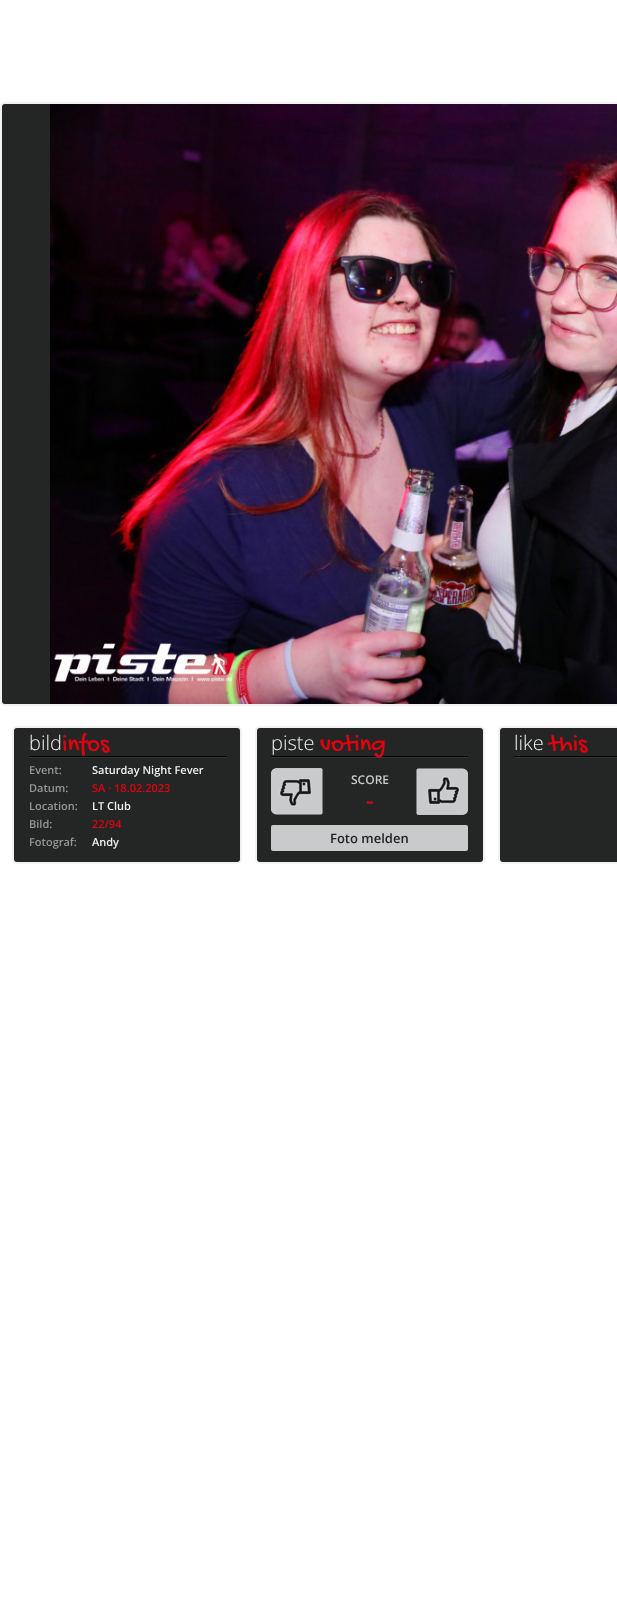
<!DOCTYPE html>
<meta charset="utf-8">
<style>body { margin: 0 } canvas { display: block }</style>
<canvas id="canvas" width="617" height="1622"></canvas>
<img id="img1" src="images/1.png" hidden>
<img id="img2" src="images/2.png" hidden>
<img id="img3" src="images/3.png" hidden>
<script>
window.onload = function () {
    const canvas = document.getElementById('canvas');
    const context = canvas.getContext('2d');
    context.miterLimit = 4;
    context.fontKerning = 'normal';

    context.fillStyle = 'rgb(255, 255, 255)';
    context.fillRect(0, 0, 617, 1622);
    context.fillStyle = 'rgb(36, 37, 37)';
    context.beginPath();
    context.roundRect(1, 103, 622, 602, 4);
    context.fill();
    context.strokeStyle = 'rgb(240, 241, 242)';
    context.lineWidth = 2;
    context.stroke();
    context.drawImage(document.getElementById('img1'), 50, 104, 567, 600);
    context.beginPath();
    context.roundRect(13, 727, 228, 136, 4);
    context.fill();
    context.stroke();
    context.fillStyle = 'rgb(0, 0, 0)';
    context.fillRect(29, 756, 197, 1);
    context.fillStyle = 'rgb(53, 53, 53)';
    context.fillRect(29, 757, 197, 1);
    context.fillStyle = 'rgb(36, 37, 37)';
    context.beginPath();
    context.roundRect(256, 727, 228, 136, 4);
    context.fill();
    context.stroke();
    context.fillStyle = 'rgb(0, 0, 0)';
    context.fillRect(271, 756, 197, 1);
    context.fillStyle = 'rgb(53, 53, 53)';
    context.fillRect(271, 757, 197, 1);
    context.drawImage(document.getElementById('img2'), 271, 768, 52, 47);
    context.drawImage(document.getElementById('img3'), 416, 768, 52, 47);
    context.fillStyle = 'rgb(200, 202, 204)';
    context.beginPath();
    context.roundRect(271, 825, 197, 26, 2);
    context.fill();
    context.fillStyle = 'rgb(36, 37, 37)';
    context.beginPath();
    context.roundRect(499, 727, 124, 136, 4);
    context.fill();
    context.stroke();
    context.fillStyle = 'rgb(0, 0, 0)';
    context.fillRect(514, 756, 103, 1);
    context.fillStyle = 'rgb(53, 53, 53)';
    context.fillRect(514, 757, 103, 1);
    context.font = '300 20px Open Sans';
    context.fillStyle = 'rgb(240, 241, 242)';
    context.fillText('bild', 29, 750);
    context.font = '25px Gochi Hand';
    context.fillStyle = 'rgb(226, 0, 15)';
    context.fillText('infos', 62, 750);
    context.font = '600 11px Open Sans';
    context.fillStyle = 'rgb(148, 151, 153)';
    context.fillText('Event:', 29, 774);
    context.fillStyle = 'rgb(240, 241, 242)';
    context.fillText('Saturday Night Fever', 92, 774);
    context.fillStyle = 'rgb(148, 151, 153)';
    context.fillText('Datum:', 29, 792);
    context.fillStyle = 'rgb(226, 0, 15)';
    context.fillText('SA · 18.02.2023', 92, 792);
    context.fillStyle = 'rgb(148, 151, 153)';
    context.fillText('Location:', 29, 810);
    context.fillStyle = 'rgb(240, 241, 242)';
    context.fillText('LT Club', 92, 810);
    context.fillStyle = 'rgb(148, 151, 153)';
    context.fillText('Bild:', 29, 828);
    context.fillStyle = 'rgb(226, 0, 15)';
    context.fillText('22/94', 92, 828);
    context.fillStyle = 'rgb(148, 151, 153)';
    context.fillText('Fotograf:', 29, 846);
    context.fillStyle = 'rgb(240, 241, 242)';
    context.fillText('Andy', 92, 846);
    context.font = '300 20px Open Sans';
    context.fillText('piste', 271, 750);
    context.font = '25px Gochi Hand';
    context.fillStyle = 'rgb(226, 0, 15)';
    context.fillText('voting', 320, 750);
    context.font = '600 12px Open Sans';
    context.fillStyle = 'rgb(200, 202, 204)';
    context.fillText('SCORE', 351, 784);
    context.font = '600 24px Open Sans';
    context.fillStyle = 'rgb(226, 0, 15)';
    context.fillText('-', 366, 809);
    context.font = '600 13px Open Sans';
    context.fillStyle = 'rgb(34, 34, 34)';
    context.fillText('Foto melden', 330, 843);
    context.font = '300 20px Open Sans';
    context.fillStyle = 'rgb(240, 241, 242)';
    context.fillText('like', 514, 750);
    context.font = '25px Gochi Hand';
    context.fillStyle = 'rgb(226, 0, 15)';
    context.fillText('this', 549, 750);
};
</script>
